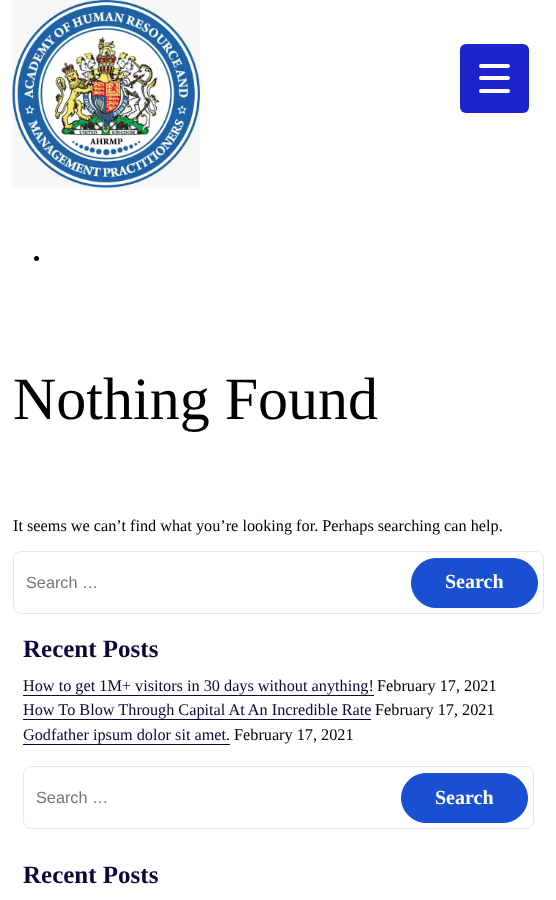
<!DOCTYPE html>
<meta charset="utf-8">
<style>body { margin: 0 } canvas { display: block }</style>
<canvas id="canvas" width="556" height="900"></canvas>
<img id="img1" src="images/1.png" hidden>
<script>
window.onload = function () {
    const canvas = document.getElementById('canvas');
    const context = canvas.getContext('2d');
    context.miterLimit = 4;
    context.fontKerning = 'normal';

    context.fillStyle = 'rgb(255, 255, 255)';
    context.fillRect(0, 0, 556, 900);
    context.fillStyle = 'rgb(29, 36, 202)';
    context.beginPath();
    context.roundRect(460, 44, 69, 69, 6);
    context.fill();
    context.fillStyle = 'rgb(255, 255, 255)';
    context.beginPath();
    context.roundRect(479, 76, 31, 4, 2);
    context.fill();
    context.beginPath();
    context.roundRect(479, 64, 31, 4, 2);
    context.fill();
    context.beginPath();
    context.roundRect(479, 89, 31, 4, 2);
    context.fill();
    context.drawImage(document.getElementById('img1'), 12, 0, 188, 188);
    context.fillStyle = 'rgb(0, 0, 0)';
    context.beginPath();
    context.arc(36.5, 258.5, 2.5, 0, 2 * Math.PI);
    context.fill();
    context.beginPath();
    context.roundRect(13.5, 551.5, 530, 62, 7.5);
    context.strokeStyle = 'rgb(231, 230, 235)';
    context.stroke();
    context.fillStyle = 'rgb(25, 80, 209)';
    context.beginPath();
    context.roundRect(411.5, 558.5, 126, 49, 24.5);
    context.fill();
    context.strokeStyle = 'rgb(25, 80, 209)';
    context.stroke();
    context.fillStyle = 'rgb(10, 8, 59)';
    context.fillRect(23, 695, 351, 1);
    context.fillRect(23, 719, 348, 1);
    context.fillRect(23, 744, 207, 1);
    context.beginPath();
    context.roundRect(23.5, 766.5, 510, 62, 7.5);
    context.strokeStyle = 'rgb(231, 230, 235)';
    context.stroke();
    context.fillStyle = 'rgb(25, 80, 209)';
    context.beginPath();
    context.roundRect(401.5, 773.5, 126, 49, 24.5);
    context.fill();
    context.strokeStyle = 'rgb(25, 80, 209)';
    context.stroke();
    context.font = '60px Liberation Serif';
    context.fillStyle = 'rgb(0, 0, 0)';
    context.fillText('Nothing Found', 13, 419);
    context.font = '16.25px Liberation Serif';
    context.fillText('It seems we can’t find what you’re looking for. Perhaps searching can help.', 13, 531);
    context.font = '16.25px Liberation Sans';
    context.fillStyle = 'rgb(117, 117, 117)';
    context.fillText('Search …', 26, 588);
    context.font = 'bold 20px Liberation Serif';
    context.fillStyle = 'rgb(255, 255, 255)';
    context.fillText('Search', 445, 588);
    context.font = 'bold 25px Liberation Serif';
    context.fillStyle = 'rgb(10, 8, 59)';
    context.fillText('Recent Posts', 23, 657);
    context.font = '16.25px Liberation Serif';
    context.fillText('How to get 1M+ visitors in 30 days without anything!', 23, 691);
    context.fillStyle = 'rgb(0, 0, 0)';
    context.fillText('February 17, 2021', 377, 691);
    context.fillStyle = 'rgb(10, 8, 59)';
    context.fillText('How To Blow Through Capital At An Incredible Rate', 23, 715);
    context.fillStyle = 'rgb(0, 0, 0)';
    context.fillText('February 17, 2021', 375, 715);
    context.fillStyle = 'rgb(10, 8, 59)';
    context.fillText('Godfather ipsum dolor sit amet.', 23, 740);
    context.fillStyle = 'rgb(0, 0, 0)';
    context.fillText('February 17, 2021', 234, 740);
    context.font = '16.25px Liberation Sans';
    context.fillStyle = 'rgb(117, 117, 117)';
    context.fillText('Search …', 36, 803);
    context.font = 'bold 20px Liberation Serif';
    context.fillStyle = 'rgb(255, 255, 255)';
    context.fillText('Search', 435, 804);
    context.font = 'bold 25px Liberation Serif';
    context.fillStyle = 'rgb(10, 8, 59)';
    context.fillText('Recent Posts', 23, 883);
};
</script>
